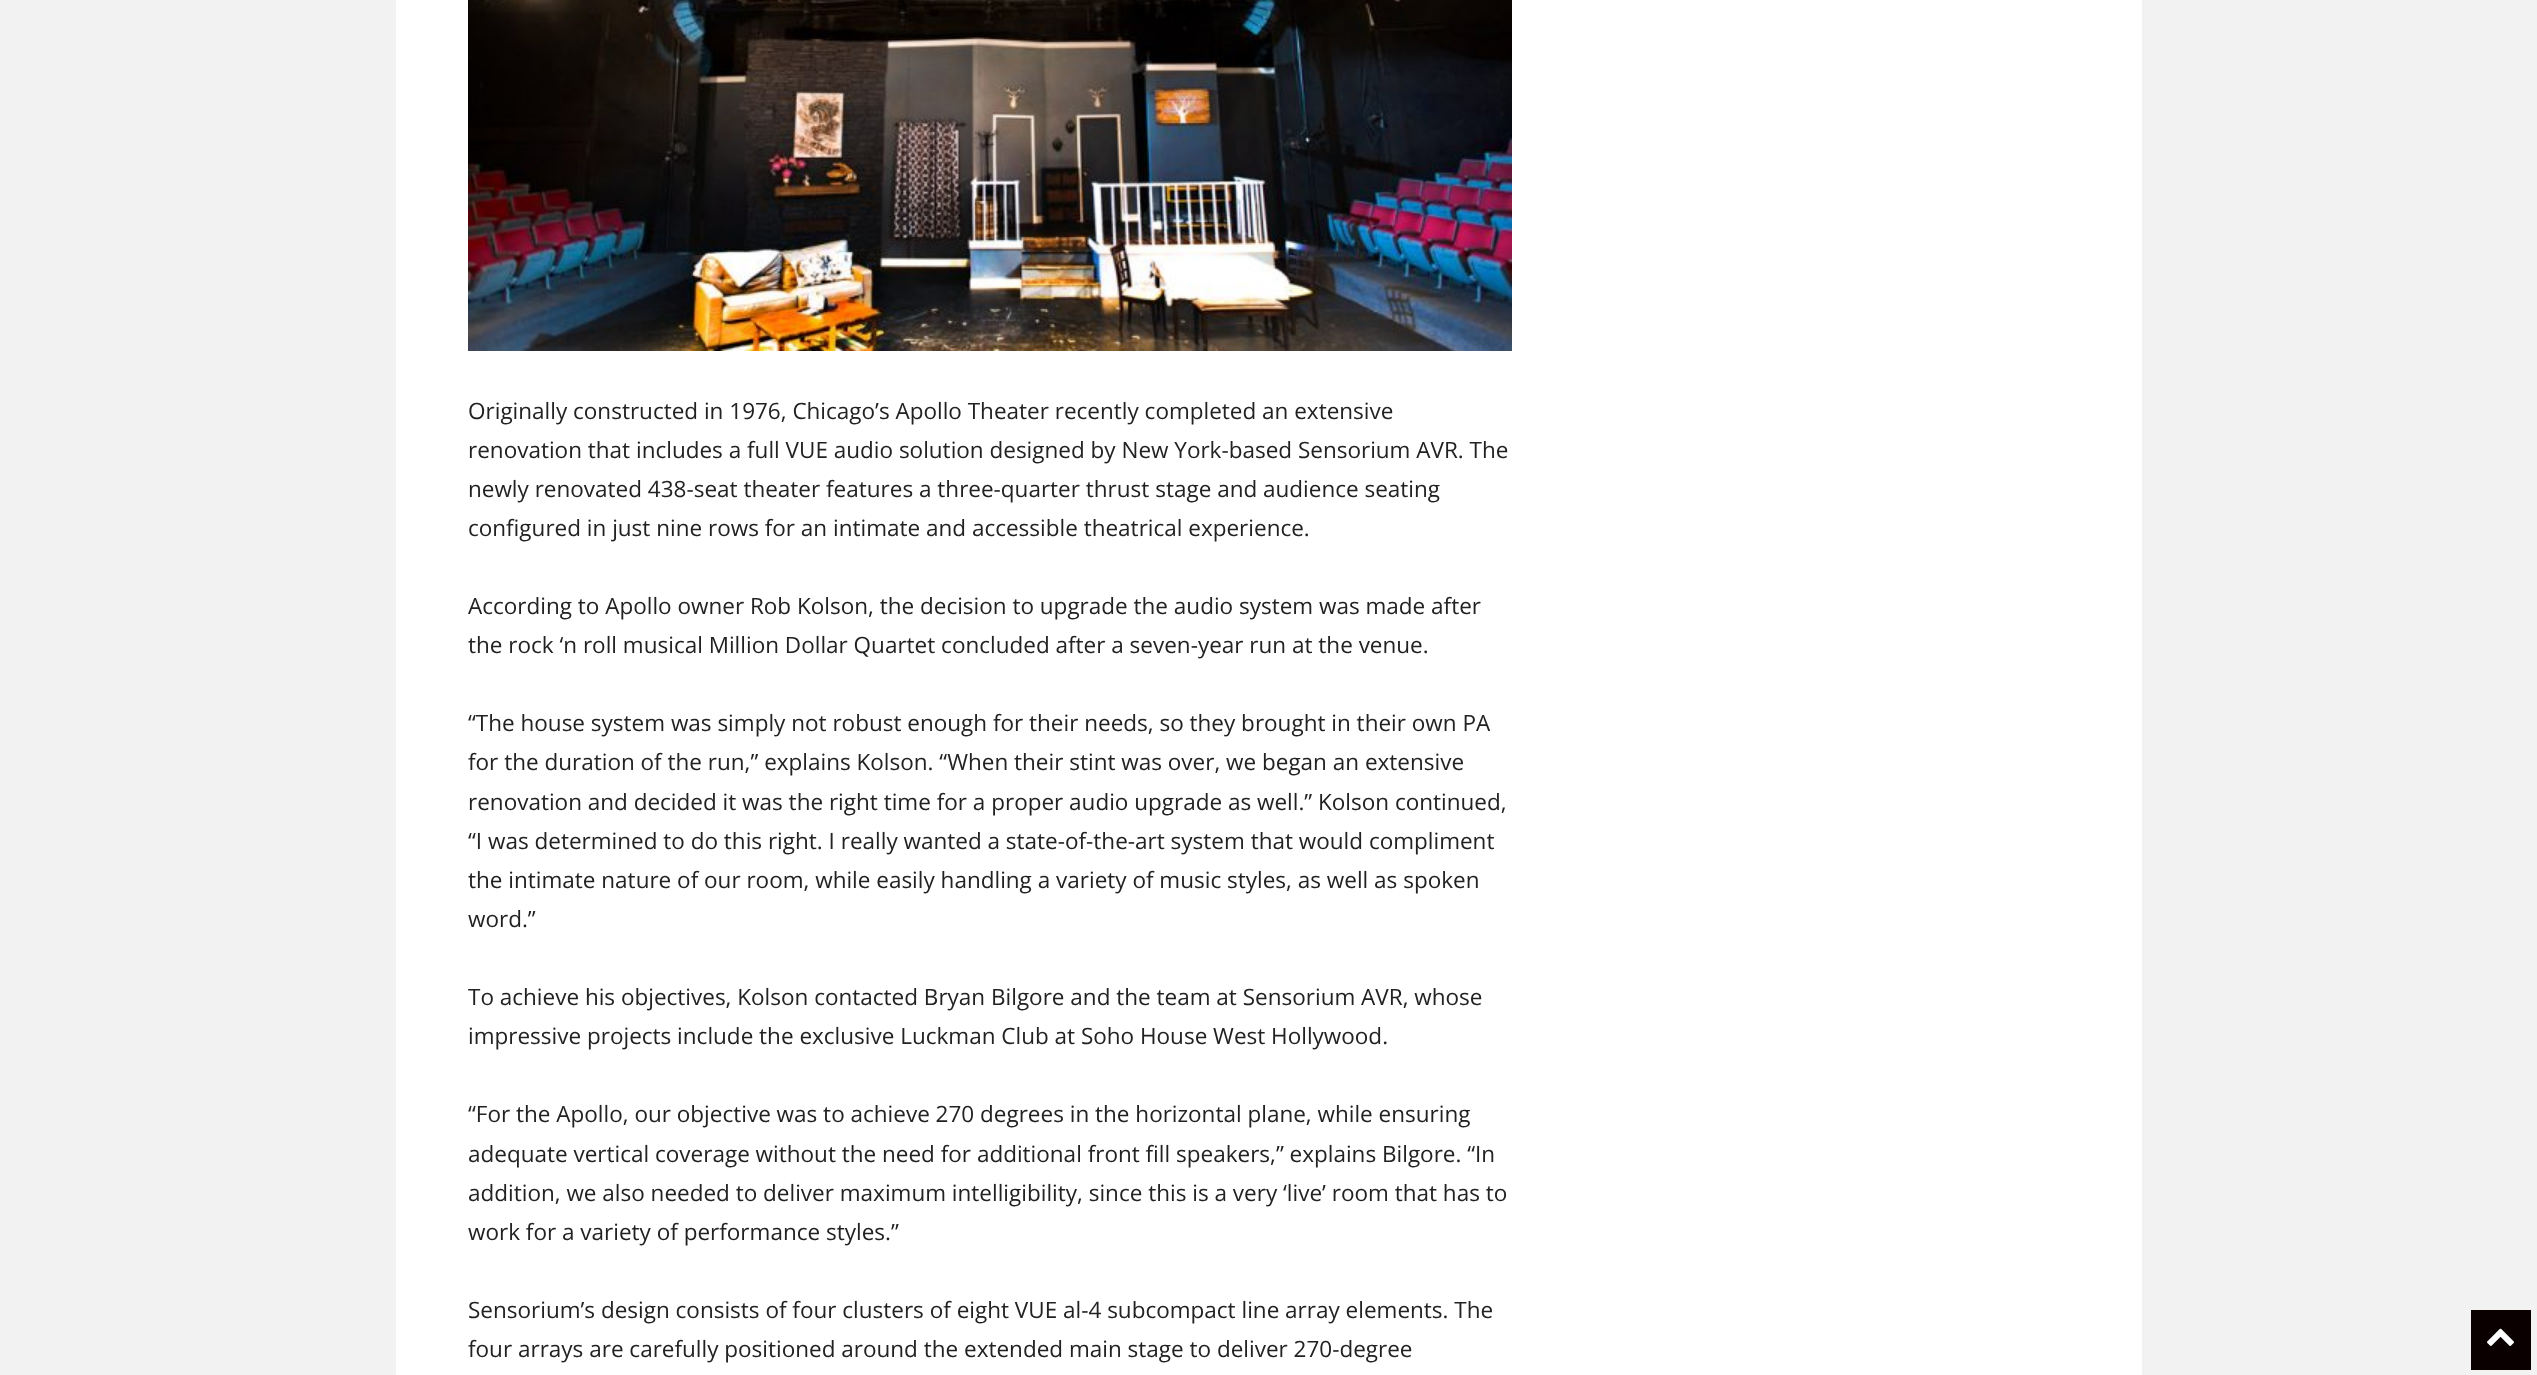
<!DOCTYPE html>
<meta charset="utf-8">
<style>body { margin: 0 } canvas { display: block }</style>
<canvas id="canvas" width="2537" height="1375"></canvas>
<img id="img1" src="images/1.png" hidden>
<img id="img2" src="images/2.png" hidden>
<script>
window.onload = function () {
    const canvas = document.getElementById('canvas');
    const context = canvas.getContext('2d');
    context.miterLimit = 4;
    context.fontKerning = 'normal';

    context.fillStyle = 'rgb(242, 242, 242)';
    context.fillRect(0, 0, 2537, 1375);
    context.fillStyle = 'rgb(255, 255, 255)';
    context.fillRect(396, 0, 1746, 1375);
    context.drawImage(document.getElementById('img1'), 468, 0, 1044, 351);
    context.fillStyle = 'rgb(10, 0, 0)';
    context.fillRect(2471, 1310, 60, 60);
    context.drawImage(document.getElementById('img2'), 2487, 1328, 27, 18);
    context.font = '22.5px Open Sans';
    context.fillStyle = 'rgb(34, 34, 34)';
    context.fillText('Originally constructed in 1976, Chicago’s Apollo Theater recently completed an extensive', 468, 419);
    context.fillText('renovation that includes a full VUE audio solution designed by New York-based Sensorium AVR. The', 468, 458);
    context.fillText('newly renovated 438-seat theater features a three-quarter thrust stage and audience seating', 468, 497);
    context.fillText('configured in just nine rows for an intimate and accessible theatrical experience.', 468, 536);
    context.fillText('According to Apollo owner Rob Kolson, the decision to upgrade the audio system was made after', 468, 614);
    context.fillText('the rock ‘n roll musical Million Dollar Quartet concluded after a seven-year run at the venue.', 468, 653);
    context.fillText('“The house system was simply not robust enough for their needs, so they brought in their own PA', 468, 731);
    context.fillText('for the duration of the run,” explains Kolson. “When their stint was over, we began an extensive', 468, 770);
    context.fillText('renovation and decided it was the right time for a proper audio upgrade as well.” Kolson continued,', 468, 810);
    context.fillText('“I was determined to do this right. I really wanted a state-of-the-art system that would compliment', 468, 849);
    context.fillText('the intimate nature of our room, while easily handling a variety of music styles, as well as spoken', 468, 888);
    context.fillText('word.”', 468, 927);
    context.fillText('To achieve his objectives, Kolson contacted Bryan Bilgore and the team at Sensorium AVR, whose', 468, 1005);
    context.fillText('impressive projects include the exclusive Luckman Club at Soho House West Hollywood.', 468, 1044);
    context.fillText('“For the Apollo, our objective was to achieve 270 degrees in the horizontal plane, while ensuring', 468, 1122);
    context.fillText('adequate vertical coverage without the need for additional front fill speakers,” explains Bilgore. “In', 468, 1162);
    context.fillText('addition, we also needed to deliver maximum intelligibility, since this is a very ‘live’ room that has to', 468, 1201);
    context.fillText('work for a variety of performance styles.”', 468, 1240);
    context.fillText('Sensorium’s design consists of four clusters of eight VUE al-4 subcompact line array elements. The', 468, 1318);
    context.fillText('four arrays are carefully positioned around the extended main stage to deliver 270-degree', 468, 1357);
};
</script>
